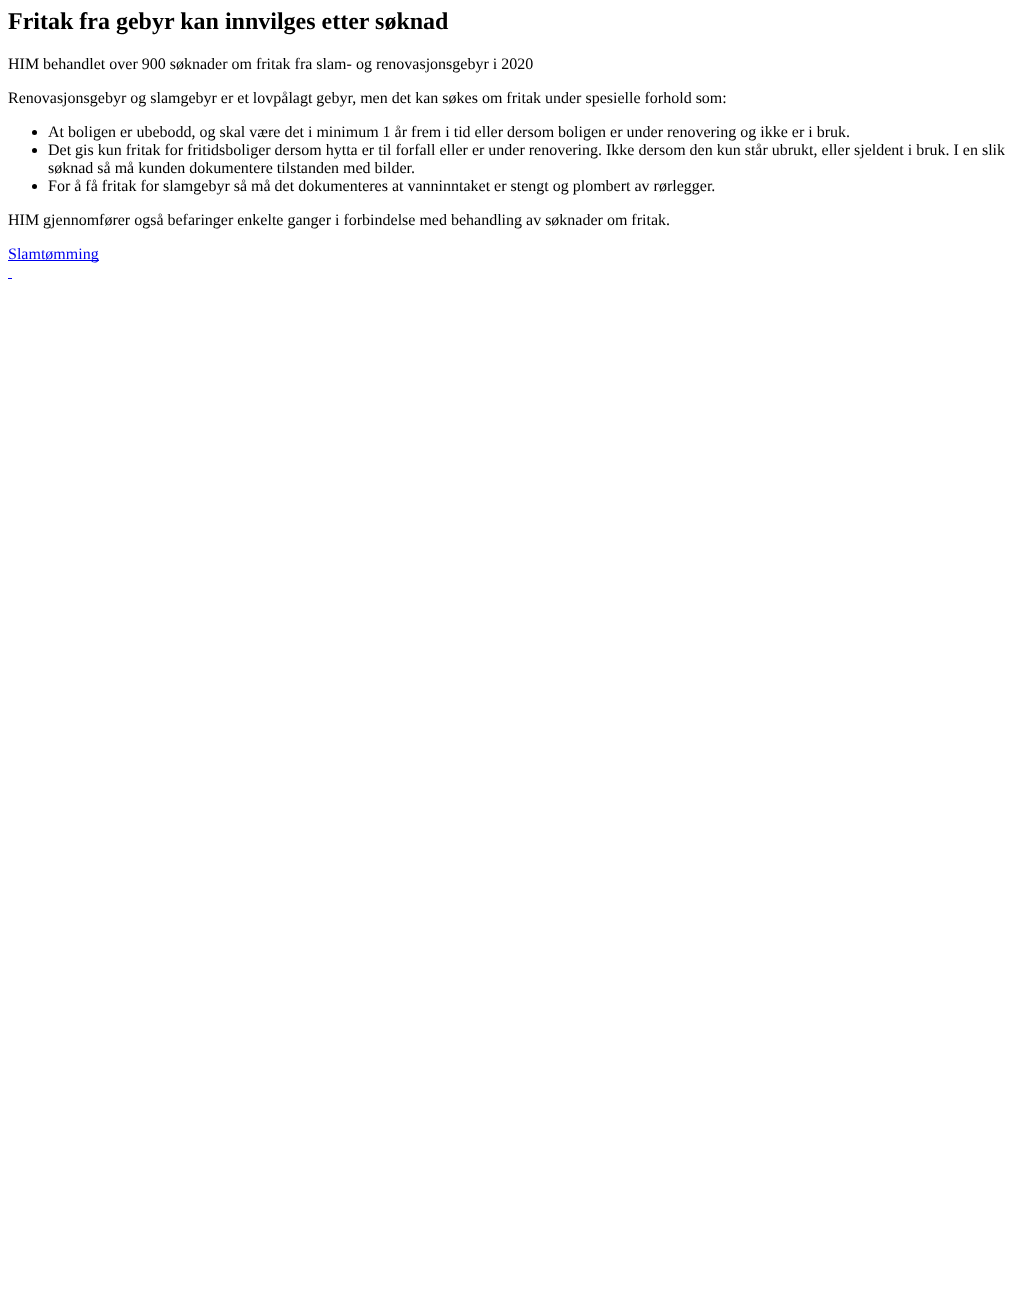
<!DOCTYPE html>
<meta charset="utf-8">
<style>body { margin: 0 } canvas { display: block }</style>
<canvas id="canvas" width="1019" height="1307"></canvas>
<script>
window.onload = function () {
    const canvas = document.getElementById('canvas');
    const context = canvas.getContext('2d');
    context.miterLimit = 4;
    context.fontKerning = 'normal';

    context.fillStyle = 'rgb(255, 255, 255)';
    context.fillRect(0, 0, 1019, 1307);
    context.fillStyle = 'rgb(0, 0, 0)';
    context.beginPath();
    context.arc(34.5, 132.5, 2.5, 0, 2 * Math.PI);
    context.fill();
    context.beginPath();
    context.arc(34.5, 150.5, 2.5, 0, 2 * Math.PI);
    context.fill();
    context.beginPath();
    context.arc(34.5, 186.5, 2.5, 0, 2 * Math.PI);
    context.fill();
    context.fillStyle = 'rgb(0, 0, 238)';
    context.fillRect(8, 260, 91, 1);
    context.fillRect(8, 278, 4, 1);
    context.font = 'bold 24px Liberation Serif';
    context.fillStyle = 'rgb(0, 0, 0)';
    context.fillText('Fritak fra gebyr kan innvilges etter søknad', 8, 29);
    context.font = '16px Liberation Serif';
    context.fillText('HIM behandlet over 900 søknader om fritak fra slam- og renovasjonsgebyr i 2020', 8, 69);
    context.fillText('Renovasjonsgebyr og slamgebyr er et lovpålagt gebyr, men det kan søkes om fritak under spesielle forhold som:', 8, 103);
    context.fillText('At boligen er ubebodd, og skal være det i minimum 1 år frem i tid eller dersom boligen er under renovering og ikke er i bruk.', 48, 137);
    context.fillText('Det gis kun fritak for fritidsboliger dersom hytta er til forfall eller er under renovering. Ikke dersom den kun står ubrukt, eller sjeldent i bruk. I en slik', 48, 155);
    context.fillText('søknad så må kunden dokumentere tilstanden med bilder.', 48, 173);
    context.fillText('For å få fritak for slamgebyr så må det dokumenteres at vanninntaket er stengt og plombert av rørlegger.', 48, 191);
    context.fillText('HIM gjennomfører også befaringer enkelte ganger i forbindelse med behandling av søknader om fritak.', 8, 225);
    context.fillStyle = 'rgb(0, 0, 238)';
    context.fillText('Slamtømming', 8, 259);
};
</script>
